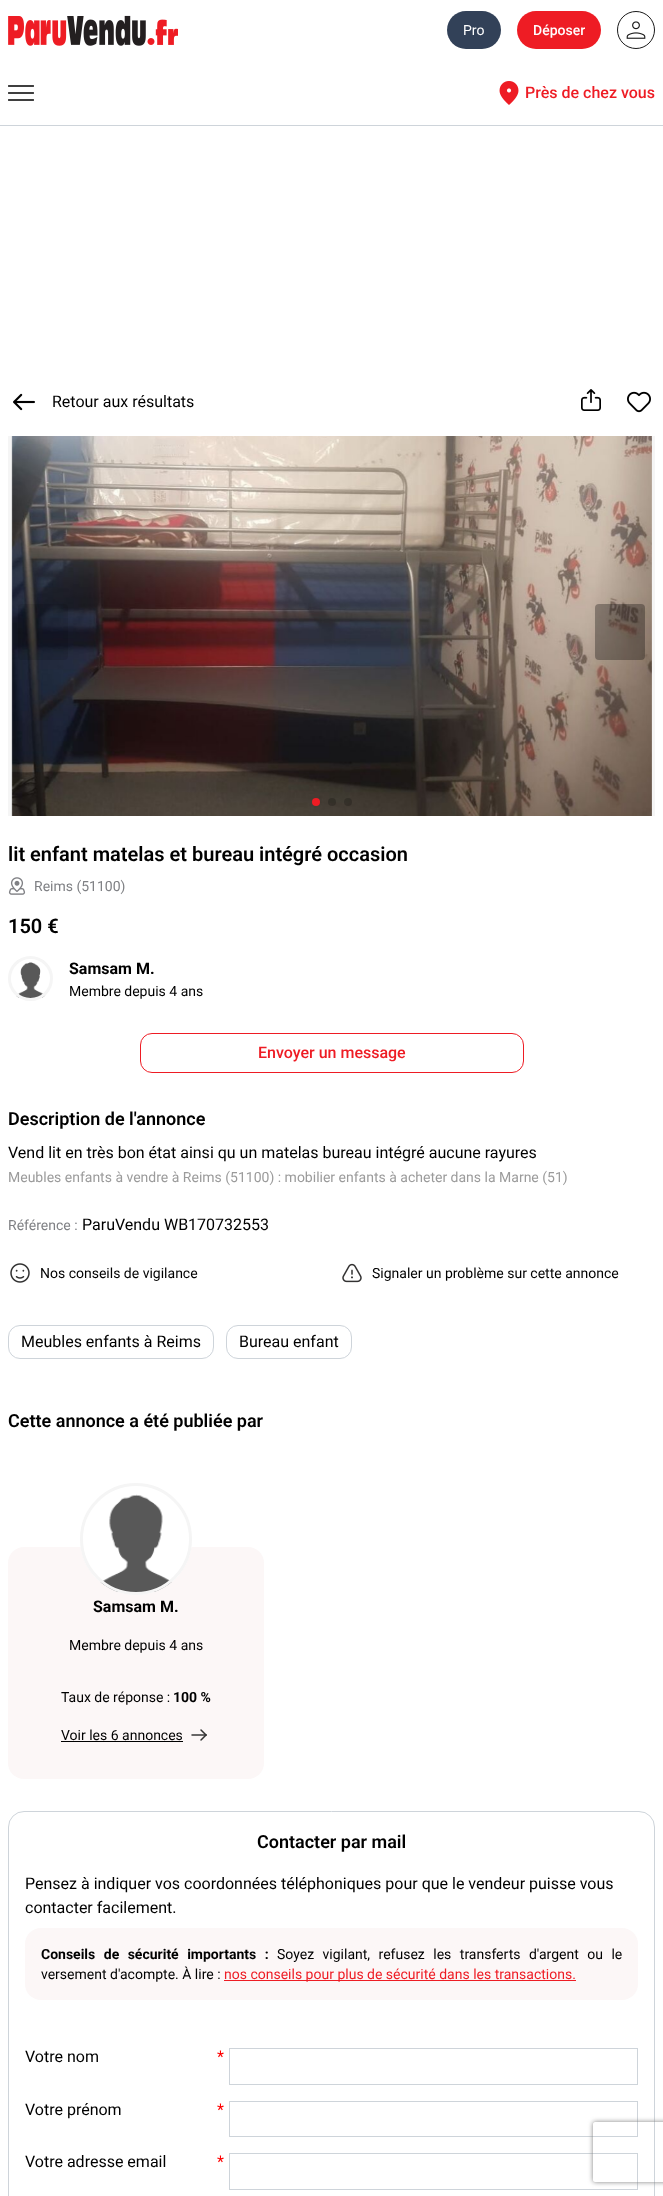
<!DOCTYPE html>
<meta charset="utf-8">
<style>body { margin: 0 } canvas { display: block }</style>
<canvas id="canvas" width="663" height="2196"></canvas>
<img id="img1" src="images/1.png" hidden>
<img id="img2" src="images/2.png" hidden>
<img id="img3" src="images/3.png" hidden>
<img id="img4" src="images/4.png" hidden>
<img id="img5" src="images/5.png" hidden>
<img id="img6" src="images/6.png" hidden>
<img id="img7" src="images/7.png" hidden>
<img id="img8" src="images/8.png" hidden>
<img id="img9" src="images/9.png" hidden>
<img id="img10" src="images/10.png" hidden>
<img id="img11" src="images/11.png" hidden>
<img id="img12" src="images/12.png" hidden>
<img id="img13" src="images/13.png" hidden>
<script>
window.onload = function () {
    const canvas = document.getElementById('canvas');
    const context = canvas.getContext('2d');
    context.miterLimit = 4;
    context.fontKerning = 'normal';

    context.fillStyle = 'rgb(255, 255, 255)';
    context.fillRect(0, 0, 663, 2196);
    context.drawImage(document.getElementById('img1'), 8, 15, 170, 31);
    context.fillStyle = 'rgb(50, 65, 88)';
    context.beginPath();
    context.roundRect(447, 11, 54, 38, 19);
    context.fill();
    context.fillStyle = 'rgb(238, 28, 36)';
    context.beginPath();
    context.roundRect(517, 11, 84, 38, 19);
    context.fill();
    context.beginPath();
    context.arc(636, 30, 18.5, 0, 2 * Math.PI);
    context.strokeStyle = 'rgb(26, 26, 26)';
    context.stroke();
    context.drawImage(document.getElementById('img2'), 626, 21, 20, 18);
    context.fillStyle = 'rgb(206, 212, 218)';
    context.fillRect(0, 125, 663, 1);
    context.save();
    context.beginPath();
    context.rect(8, 85, 26, 16);
    context.clip();
    context.beginPath();
    context.moveTo(8.5, 93);
    context.lineTo(33.5, 93);
    context.moveTo(8.5, 100);
    context.lineTo(33.5, 100);
    context.moveTo(8.5, 86);
    context.lineTo(33.5, 86);
    context.strokeStyle = 'rgb(0, 0, 0)';
    context.lineWidth = 1.5;
    context.lineCap = 'round';
    context.lineJoin = 'round';
    context.stroke();
    context.restore();
    context.drawImage(document.getElementById('img3'), 499, 81, 20, 24);
    context.drawImage(document.getElementById('img4'), 13, 393, 22, 18);
    context.drawImage(document.getElementById('img5'), 581, 389, 20, 22);
    context.drawImage(document.getElementById('img6'), 627, 391, 24, 22);
    context.fillStyle = 'rgb(245, 245, 245)';
    context.fillRect(8, 436, 647, 380);
    context.drawImage(document.getElementById('img7'), 11, 436, 641, 380);
    context.fillStyle = 'rgba(0, 0, 0, 0.1)';
    context.beginPath();
    context.roundRect(18, 604, 50, 56, 4);
    context.fill();
    context.fillStyle = 'rgba(0, 0, 0, 0.3)';
    context.beginPath();
    context.roundRect(595, 604, 50, 56, 4);
    context.fill();
    context.fillStyle = 'rgb(238, 28, 36)';
    context.beginPath();
    context.arc(316, 802, 4, 0, 2 * Math.PI);
    context.fill();
    context.fillStyle = 'rgba(0, 0, 0, 0.2)';
    context.beginPath();
    context.arc(332, 802, 4, 0, 2 * Math.PI);
    context.fill();
    context.beginPath();
    context.arc(348, 802, 4, 0, 2 * Math.PI);
    context.fill();
    context.drawImage(document.getElementById('img8'), 8, 877, 18, 18);
    context.drawImage(document.getElementById('img9'), 16, 962, 30, 36);
    context.beginPath();
    context.arc(30.5, 978.5, 21, 0, 2 * Math.PI);
    context.strokeStyle = 'rgb(245, 245, 245)';
    context.lineWidth = 3;
    context.stroke();
    context.beginPath();
    context.roundRect(140.5, 1033.5, 383, 39, 11.5);
    context.strokeStyle = 'rgb(238, 28, 36)';
    context.lineWidth = 1;
    context.stroke();
    context.drawImage(document.getElementById('img10'), 10, 1263, 20, 20);
    context.drawImage(document.getElementById('img11'), 342, 1263, 20, 20);
    context.beginPath();
    context.roundRect(8.5, 1325.5, 205, 33, 11.5);
    context.strokeStyle = 'rgb(206, 212, 218)';
    context.stroke();
    context.beginPath();
    context.roundRect(226.5, 1325.5, 125, 33, 11.5);
    context.stroke();
    context.fillStyle = 'rgb(252, 247, 247)';
    context.beginPath();
    context.roundRect(8, 1547, 256, 232, 16);
    context.fill();
    context.fillStyle = 'rgb(255, 255, 255)';
    context.beginPath();
    context.arc(136, 1539, 56, 0, 2 * Math.PI);
    context.fill();
    context.drawImage(document.getElementById('img12'), 100, 1494, 72, 98);
    context.beginPath();
    context.arc(136, 1539, 54.5, 0, 2 * Math.PI);
    context.strokeStyle = 'rgb(245, 245, 245)';
    context.lineWidth = 3;
    context.stroke();
    context.fillStyle = 'rgb(0, 0, 0)';
    context.fillRect(61, 1741, 122, 1);
    context.drawImage(document.getElementById('img13'), 191, 1729, 16, 12);
    context.beginPath();
    context.roundRect(8.5, 1811.5, 646, 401, 15.5);
    context.strokeStyle = 'rgb(206, 212, 218)';
    context.lineWidth = 1;
    context.stroke();
    context.fillStyle = 'rgb(252, 247, 247)';
    context.beginPath();
    context.roundRect(25, 1928, 613, 72, 16);
    context.fill();
    context.fillStyle = 'rgb(238, 28, 36)';
    context.fillRect(224, 1980, 352, 1);
    context.strokeRect(229.5, 2048.5, 408, 36);
    context.strokeRect(229.5, 2101.5, 408, 35);
    context.strokeRect(229.5, 2153.5, 408, 36);
    context.save();
    context.beginPath();
    context.moveTo(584, 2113);
    context.lineTo(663, 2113);
    context.lineTo(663, 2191);
    context.lineTo(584, 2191);
    context.closePath();
    context.moveTo(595, 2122);
    context.lineTo(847, 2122);
    context.bezierCurveTo(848, 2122, 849, 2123, 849, 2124);
    context.lineTo(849, 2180);
    context.bezierCurveTo(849, 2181, 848, 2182, 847, 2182);
    context.lineTo(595, 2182);
    context.bezierCurveTo(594, 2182, 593, 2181, 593, 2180);
    context.lineTo(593, 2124);
    context.bezierCurveTo(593, 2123, 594, 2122, 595, 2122);
    context.closePath();
    context.clip('evenodd');
    context.fillStyle = 'rgb(128, 128, 128)';
    context.filter = 'blur(2.5px)';
    context.beginPath();
    context.roundRect(593, 2122, 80, 60, 2);
    context.fill();
    context.filter = 'none';
    context.restore();
    context.font = '14px Roboto';
    context.fillStyle = 'rgb(255, 255, 255)';
    context.fillText('Pro', 463, 35);
    context.font = '500 14px Roboto';
    context.fillText('Déposer', 533, 35);
    context.font = '500 16px Roboto';
    context.fillStyle = 'rgb(238, 28, 36)';
    context.fillText('Près de chez vous', 525, 98);
    context.font = '16px Roboto';
    context.fillStyle = 'rgb(0, 0, 0)';
    context.fillText('Retour aux résultats', 52, 407);
    context.font = '600 20px Roboto';
    context.fillText('lit enfant matelas et bureau intégré occasion', 8, 861);
    context.font = '14px Roboto';
    context.fillStyle = 'rgb(127, 128, 132)';
    context.fillText('Reims (51100)', 34, 891);
    context.font = '600 20px Roboto';
    context.fillStyle = 'rgb(0, 0, 0)';
    context.fillText('150 €', 8, 933);
    context.font = 'bold 16px Roboto';
    context.fillText('Samsam M.', 69, 974);
    context.font = '14px Roboto';
    context.fillText('Membre depuis 4 ans', 69, 996);
    context.font = '500 16px Roboto';
    context.fillStyle = 'rgb(238, 28, 36)';
    context.fillText('Envoyer un message', 258, 1058);
    context.font = '600 18px Roboto';
    context.fillStyle = 'rgb(0, 0, 0)';
    context.fillText('Description de l\'annonce', 8, 1125);
    context.font = '16px Roboto';
    context.fillText('Vend lit en très bon état ainsi qu un matelas bureau intégré aucune rayures', 8, 1158);
    context.font = '14px Roboto';
    context.fillStyle = 'rgb(155, 155, 155)';
    context.fillText('Meubles enfants à vendre à Reims (51100) : mobilier enfants à acheter dans la Marne (51)', 8, 1182);
    context.fillStyle = 'rgb(127, 128, 132)';
    context.fillText('Référence :', 8, 1230);
    context.font = '16px Roboto';
    context.fillStyle = 'rgb(0, 0, 0)';
    context.fillText('ParuVendu WB170732553', 82, 1230);
    context.font = '14px Roboto';
    context.fillText('Nos conseils de vigilance', 40, 1278);
    context.fillText('Signaler un problème sur cette annonce', 372, 1278);
    context.font = '16px Roboto';
    context.fillText('Meubles enfants à Reims', 21, 1347);
    context.fillText('Bureau enfant', 239, 1347);
    context.font = '600 18px Roboto';
    context.fillText('Cette annonce a été publiée par', 8, 1427);
    context.font = 'bold 16px Roboto';
    context.fillText('Samsam M.', 93, 1612);
    context.font = '14px Roboto';
    context.fillText('Membre depuis 4 ans', 69, 1650);
    context.fillText('Taux de réponse :', 61, 1702);
    context.font = 'bold 14px Roboto';
    context.fillText('100 %', 173, 1702);
    context.font = '14px Roboto';
    context.fillText('Voir les 6 annonces', 61, 1740);
    context.font = '600 18px Roboto';
    context.fillText('Contacter par mail', 257, 1848);
    context.font = '16px Roboto';
    context.fillText('Pensez à indiquer vos coordonnées téléphoniques pour que le vendeur puisse vous', 25, 1889);
    context.fillText('contacter facilement.', 25, 1913);
    context.wordSpacing = '5px';
    context.font = 'bold 14px Roboto';
    context.fillText('Conseils de sécurité importants :', 41, 1959);
    context.font = '14px Roboto';
    context.fillText('Soyez vigilant, refusez les transferts d\'argent ou le', 277, 1959);
    context.wordSpacing = '0px';
    context.fillText('versement d\'acompte. À lire :', 41, 1979);
    context.fillStyle = 'rgb(238, 28, 36)';
    context.fillText('nos conseils pour plus de sécurité dans les transactions.', 224, 1979);
    context.font = '16px Roboto';
    context.fillStyle = 'rgb(0, 0, 0)';
    context.fillText('Votre nom', 25, 2062);
    context.fillStyle = 'rgb(255, 0, 0)';
    context.fillText('*', 217, 2062);
    context.fillStyle = 'rgb(0, 0, 0)';
    context.fillText('Votre prénom', 25, 2115);
    context.fillStyle = 'rgb(255, 0, 0)';
    context.fillText('*', 217, 2115);
    context.fillStyle = 'rgb(0, 0, 0)';
    context.fillText('Votre adresse email', 25, 2167);
    context.fillStyle = 'rgb(255, 0, 0)';
    context.fillText('*', 217, 2167);
};
</script>
